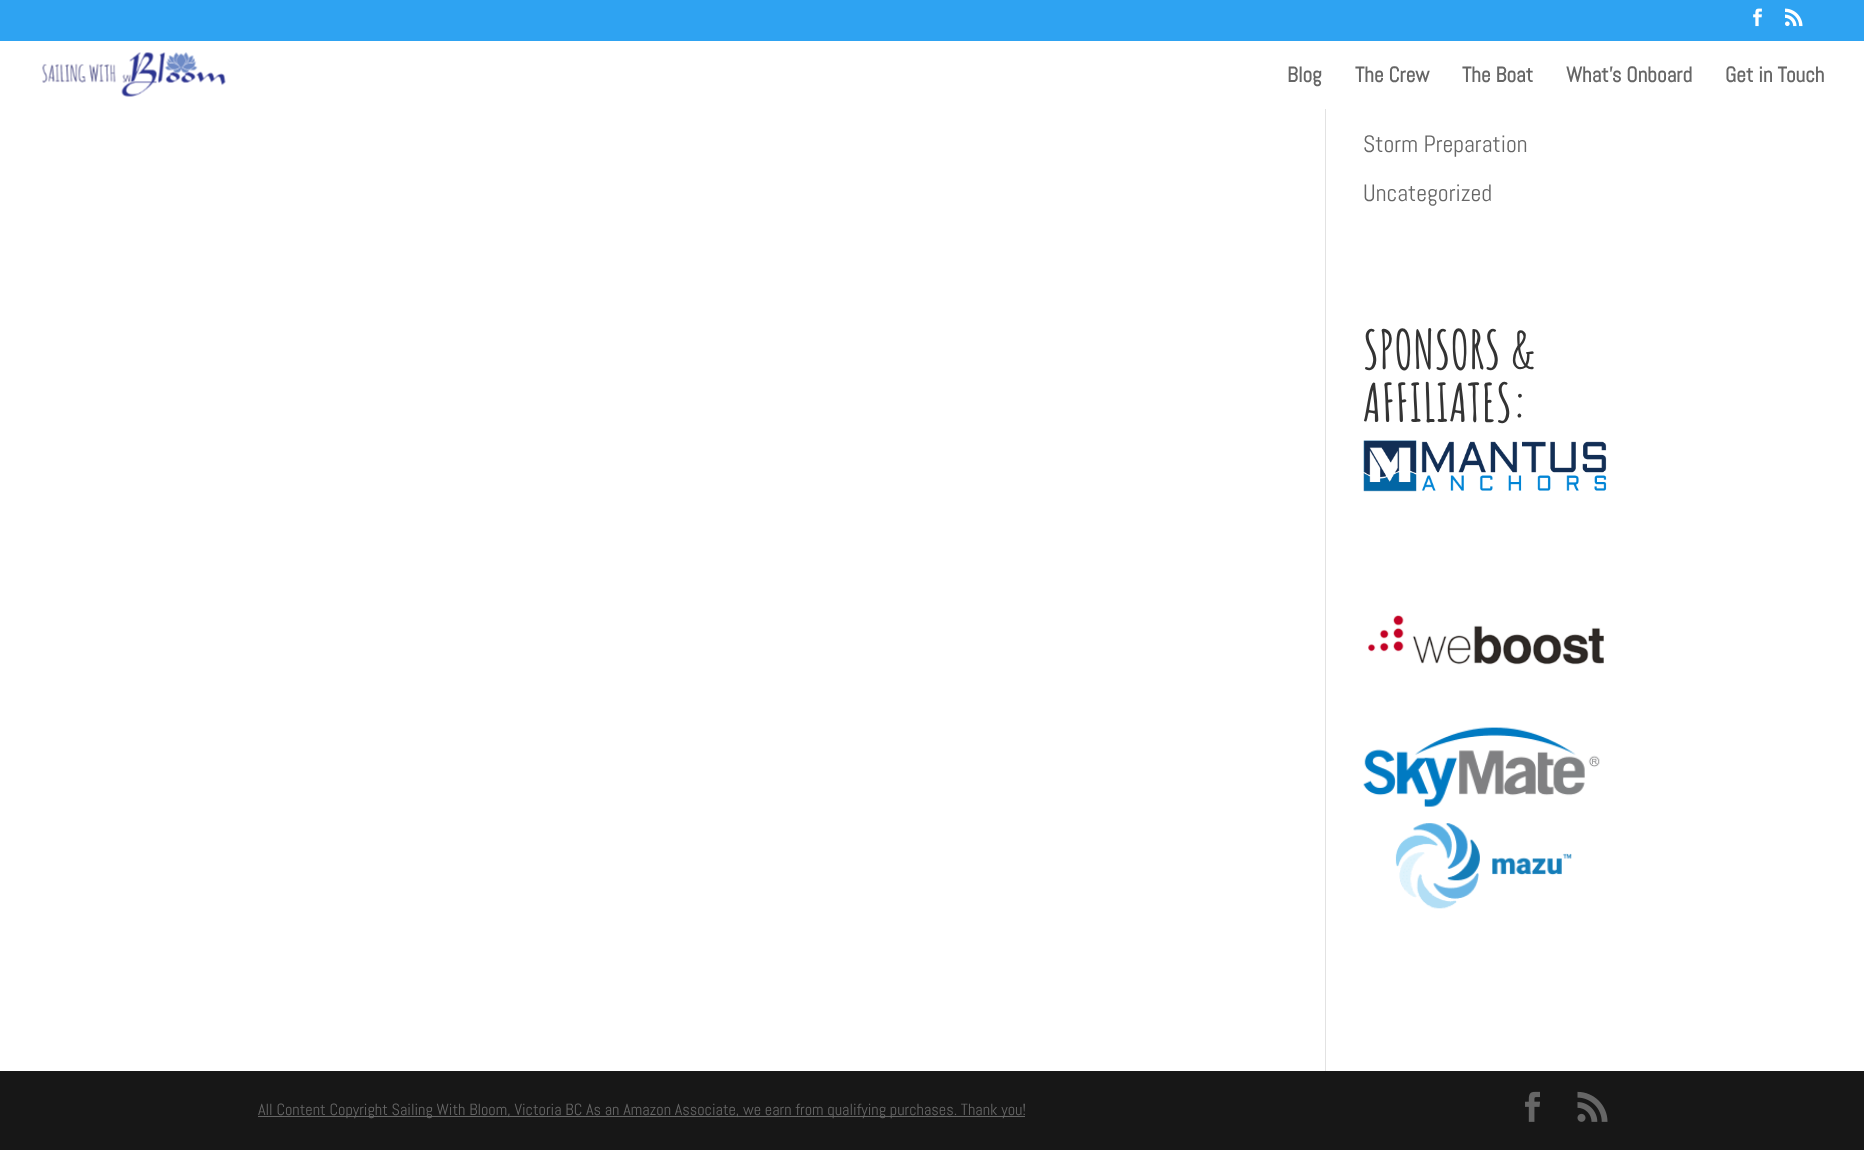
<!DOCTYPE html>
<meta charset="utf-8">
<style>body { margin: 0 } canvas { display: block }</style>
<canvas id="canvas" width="1864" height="1150"></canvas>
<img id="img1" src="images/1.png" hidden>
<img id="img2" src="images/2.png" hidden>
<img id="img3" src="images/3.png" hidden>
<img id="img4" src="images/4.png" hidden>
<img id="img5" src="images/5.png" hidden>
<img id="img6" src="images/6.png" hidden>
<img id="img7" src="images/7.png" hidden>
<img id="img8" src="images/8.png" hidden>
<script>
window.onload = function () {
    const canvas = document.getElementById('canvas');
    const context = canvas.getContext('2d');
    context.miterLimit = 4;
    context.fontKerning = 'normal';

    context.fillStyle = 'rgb(255, 255, 255)';
    context.fillRect(0, 0, 1864, 1150);
    context.fillStyle = 'rgb(46, 163, 242)';
    context.fillRect(0, 0, 1864, 41);
    context.drawImage(document.getElementById('img1'), 1753, 8, 9, 19);
    context.drawImage(document.getElementById('img2'), 1785, 8, 18, 19);
    context.drawImage(document.getElementById('img3'), 42, 52, 184, 45);
    context.fillStyle = 'rgb(226, 226, 226)';
    context.fillRect(1325, 109, 1, 962);
    context.drawImage(document.getElementById('img4'), 1363, 440, 244, 52);
    context.drawImage(document.getElementById('img5'), 1368, 615, 236, 50);
    context.drawImage(document.getElementById('img6'), 1363, 727, 237, 182);
    context.fillStyle = 'rgb(23, 23, 23)';
    context.fillRect(0, 1071, 1864, 79);
    context.fillStyle = 'rgb(102, 102, 102)';
    context.fillRect(258, 1116, 767, 1);
    context.drawImage(document.getElementById('img7'), 1525, 1091, 15, 31);
    context.drawImage(document.getElementById('img8'), 1577, 1091, 31, 31);
    context.font = 'bold 21.25px Abel';
    context.fillText('Blog', 1287, 82);
    context.fillText('The Crew', 1355, 82);
    context.fillText('The Boat', 1462, 82);
    context.fillText('What’s Onboard', 1566, 82);
    context.fillText('Get in Touch', 1725, 82);
    context.font = '23.75px Abel';
    context.fillText('Storm Preparation', 1363, 152);
    context.fillText('Uncategorized', 1363, 201);
    context.font = 'bold 52.5px Amatic SC';
    context.fillStyle = 'rgb(51, 51, 51)';
    context.fillText('SPONSORS &', 1363, 369);
    context.fillText('AFFILIATES:', 1363, 422);
    context.font = '16.25px Abel';
    context.fillStyle = 'rgb(102, 102, 102)';
    context.fillText('All Content Copyright Sailing With Bloom, Victoria BC As an Amazon Associate, we earn from qualifying purchases. Thank you!', 258, 1115);
};
</script>
